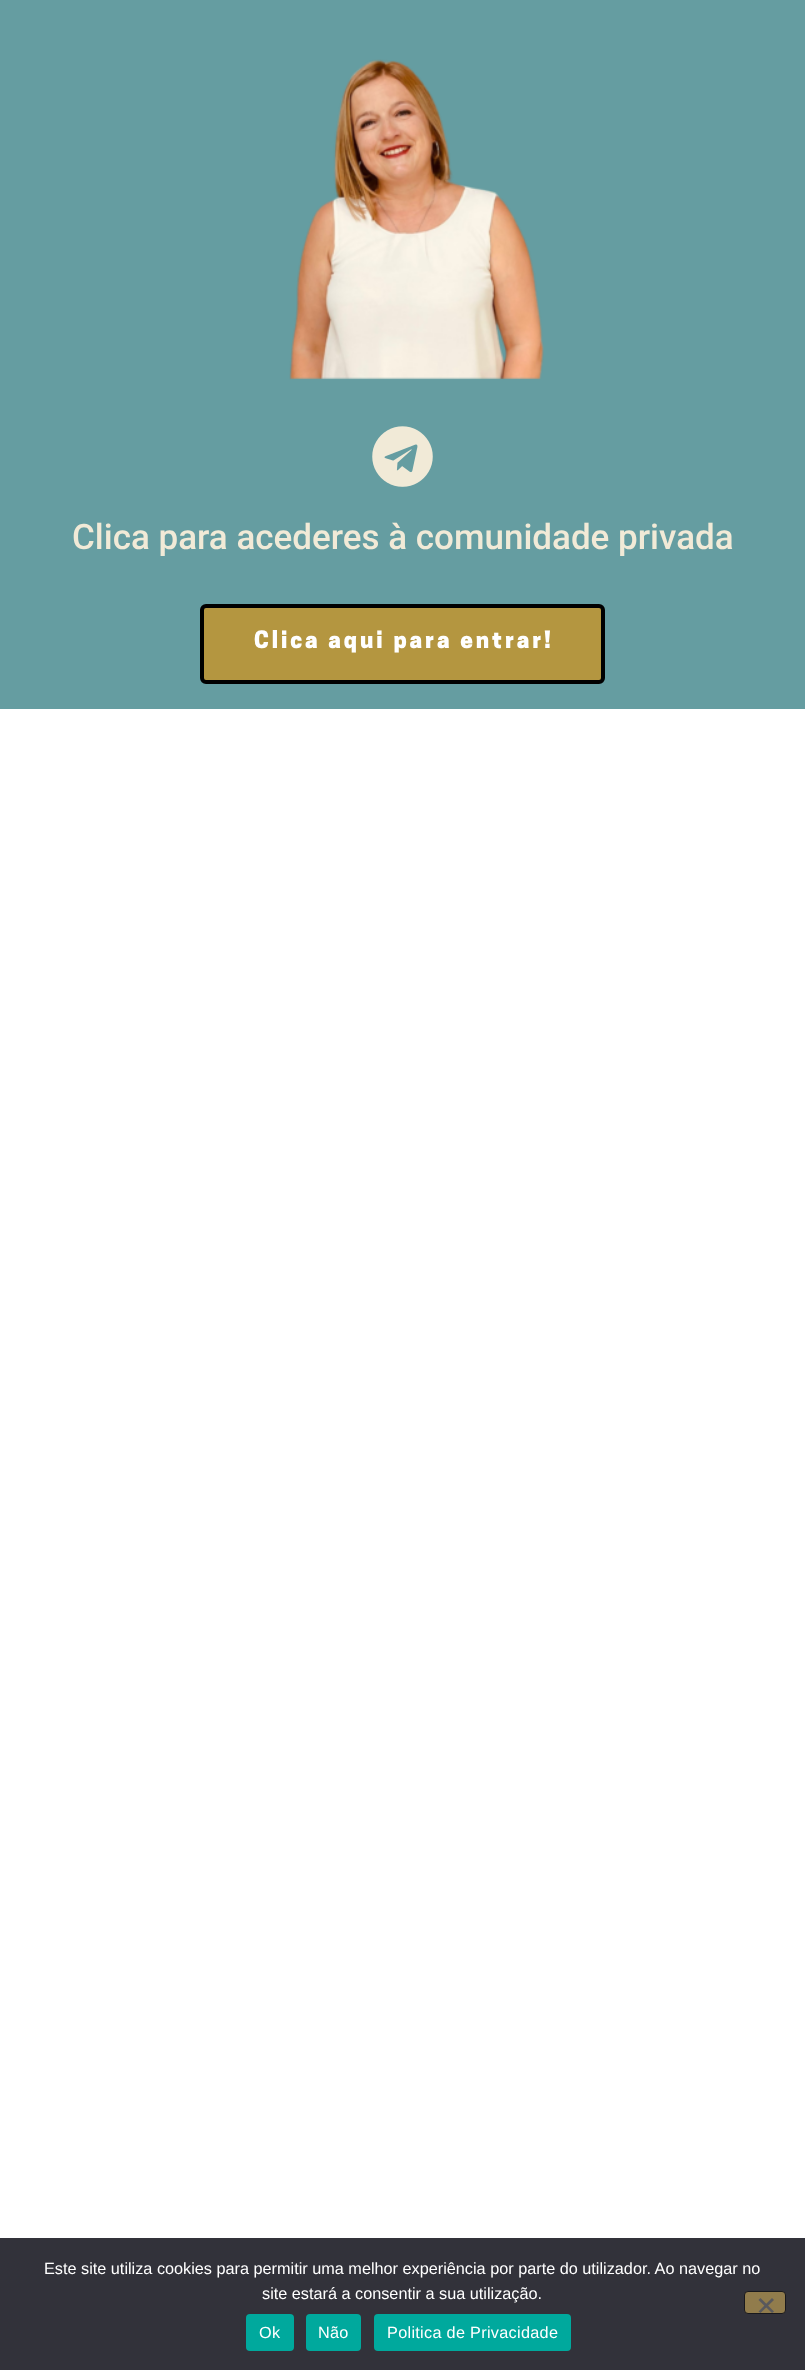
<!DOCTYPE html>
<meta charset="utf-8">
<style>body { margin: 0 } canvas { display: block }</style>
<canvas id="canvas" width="805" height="2370"></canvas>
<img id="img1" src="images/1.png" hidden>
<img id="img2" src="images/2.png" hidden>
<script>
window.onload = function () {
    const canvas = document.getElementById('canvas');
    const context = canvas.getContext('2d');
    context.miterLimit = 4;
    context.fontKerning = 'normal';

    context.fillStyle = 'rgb(255, 255, 255)';
    context.fillRect(0, 0, 805, 2370);
    context.fillStyle = 'rgb(101, 157, 161)';
    context.fillRect(0, 0, 805, 709);
    context.drawImage(document.getElementById('img1'), 289, 59, 255, 321);
    context.drawImage(document.getElementById('img2'), 372, 426, 61, 61);
    context.fillStyle = 'rgb(180, 150, 64)';
    context.beginPath();
    context.roundRect(202, 606, 401, 76, 4);
    context.fill();
    context.strokeStyle = 'rgb(0, 0, 0)';
    context.lineWidth = 4;
    context.stroke();
    context.fillStyle = 'rgb(50, 50, 58)';
    context.fillRect(0, 2238, 805, 132);
    context.fillStyle = 'rgb(145, 124, 76)';
    context.beginPath();
    context.roundRect(744.5, 2291.5, 41, 22, 3.5);
    context.fill();
    context.strokeStyle = 'rgb(25, 25, 29)';
    context.lineWidth = 1;
    context.stroke();
    context.fillStyle = 'rgb(89, 89, 93)';
    context.beginPath();
    context.moveTo(772, 2298);
    context.lineTo(774, 2300);
    context.lineTo(760.5, 2313);
    context.lineTo(758.5, 2311.5);
    context.closePath();
    context.fill();
    context.beginPath();
    context.moveTo(758.5, 2300);
    context.lineTo(760.5, 2298);
    context.lineTo(774, 2311.5);
    context.lineTo(772, 2313);
    context.closePath();
    context.fill();
    context.fillStyle = 'rgb(0, 169, 157)';
    context.beginPath();
    context.roundRect(246, 2314, 48, 37, 4);
    context.fill();
    context.beginPath();
    context.roundRect(306, 2314, 55, 37, 4);
    context.fill();
    context.beginPath();
    context.roundRect(374, 2314, 197, 37, 4);
    context.fill();
    context.font = '500 35px Roboto';
    context.fillStyle = 'rgb(241, 234, 215)';
    context.fillText('Clica para acederes à comunidade privada', 72, 549);
    context.letterSpacing = '2.9px';
    context.wordSpacing = '0.5px';
    context.font = '900 22.5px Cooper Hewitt';
    context.fillStyle = 'rgb(255, 255, 255)';
    context.fillText('Clica aqui para entrar!', 254, 648);
    context.letterSpacing = '0px';
    context.wordSpacing = '0px';
    context.font = '16.25px Liberation Sans';
    context.fillText('Este site utiliza cookies para permitir uma melhor experiência por parte do utilizador. Ao navegar no', 44, 2274);
    context.fillText('site estará a consentir a sua utilização.', 262, 2299);
    context.letterSpacing = '0.3px';
    context.fillText('Ok', 259, 2338);
    context.fillText('Não', 318, 2338);
    context.fillText('Politica de Privacidade', 387, 2338);
};
</script>
